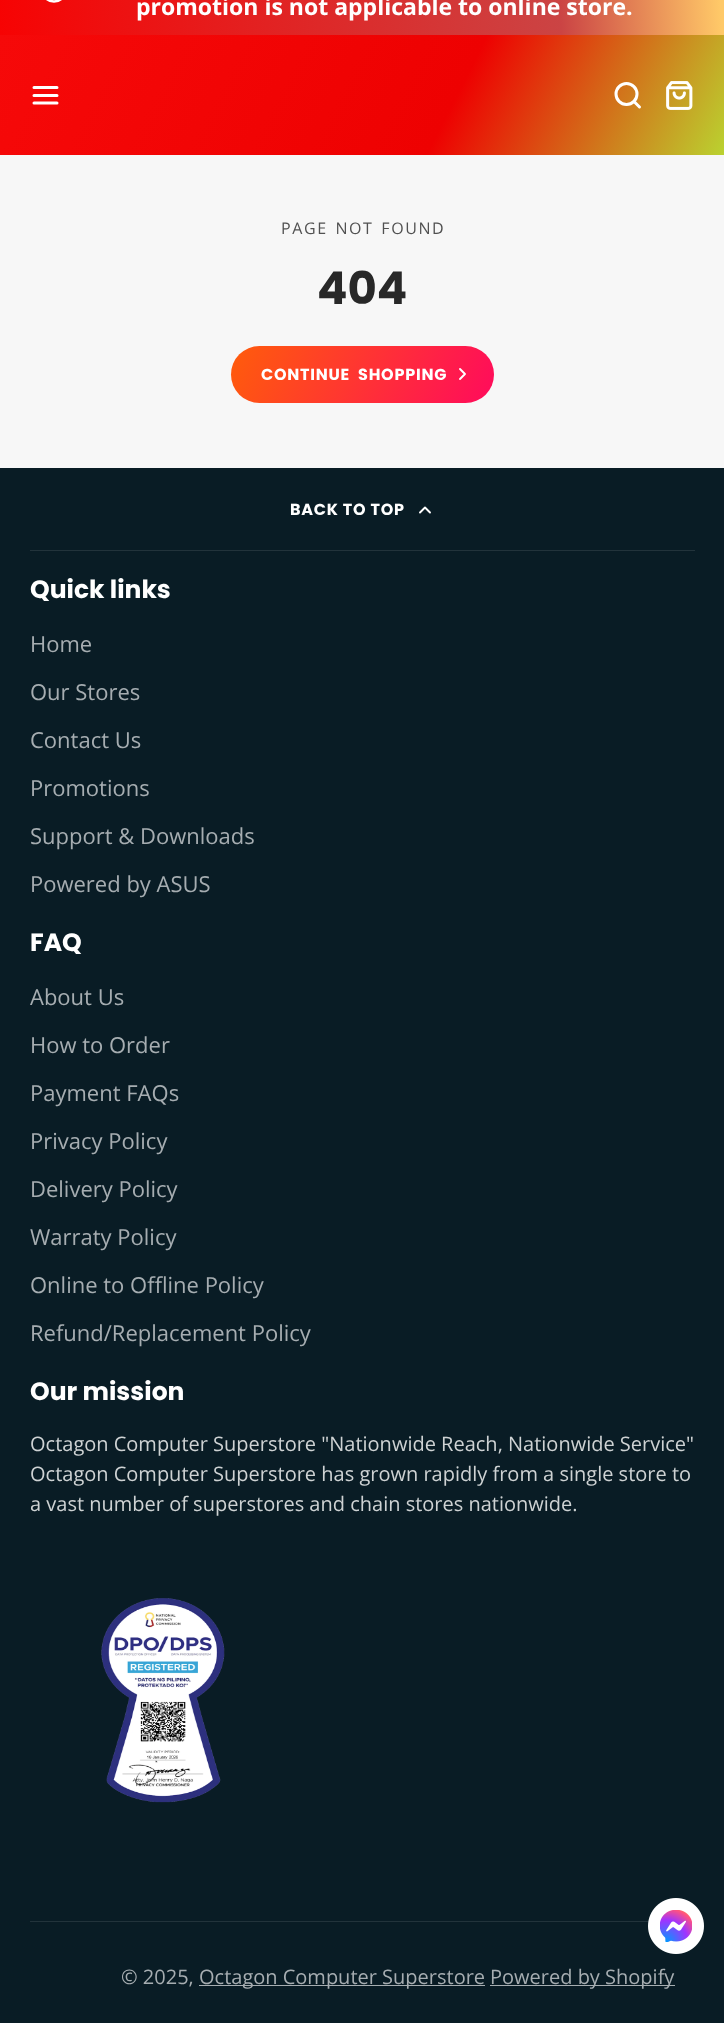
<!DOCTYPE html>
<meta charset="utf-8">
<style>body { margin: 0 } canvas { display: block }</style>
<canvas id="canvas" width="724" height="2023"></canvas>
<img id="img1" src="images/1.png" hidden>
<img id="img2" src="images/2.png" hidden>
<img id="img3" src="images/3.png" hidden>
<script>
window.onload = function () {
    const canvas = document.getElementById('canvas');
    const context = canvas.getContext('2d');
    context.miterLimit = 4;
    context.fontKerning = 'normal';
    let gradient;

    context.fillStyle = 'rgb(247, 247, 247)';
    context.fillRect(0, 0, 724, 2023);
    gradient = context.createLinearGradient(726, -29, -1.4, 9);
    gradient.addColorStop(0.01, 'rgb(255, 201, 104)');
    gradient.addColorStop(0.23, 'rgb(203, 68, 68)');
    gradient.addColorStop(1, 'rgb(247, 3, 3)');
    context.fillStyle = gradient;
    context.fillRect(0, 0, 724, 35);
    context.beginPath();
    context.arc(54, -10, 11.5, 0, 2 * Math.PI);
    context.strokeStyle = 'rgb(255, 255, 255)';
    context.lineWidth = 2.7;
    context.stroke();
    gradient = context.createLinearGradient(50, -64, 675, 254);
    gradient.addColorStop(0, 'rgb(246, 9, 9)');
    gradient.addColorStop(0.62, 'rgb(238, 1, 1)');
    gradient.addColorStop(1, 'rgb(186, 211, 48)');
    context.fillStyle = gradient;
    context.fillRect(0, 35, 724, 120);
    context.beginPath();
    context.moveTo(34, 95.5);
    context.lineTo(57, 95.5);
    context.moveTo(34, 87.5);
    context.lineTo(57, 87.5);
    context.moveTo(34, 103);
    context.lineTo(57, 103);
    context.lineWidth = 3;
    context.lineCap = 'round';
    context.lineJoin = 'round';
    context.stroke();
    context.beginPath();
    context.arc(626.5, 94, 10.5, 0, 2 * Math.PI);
    context.stroke();
    context.beginPath();
    context.moveTo(639.5, 107);
    context.lineTo(634, 101.5);
    context.stroke();
    context.drawImage(document.getElementById('img1'), 666, 81, 27, 29);
    gradient = context.createLinearGradient(244, 319, 481, 430);
    gradient.addColorStop(0, 'rgb(255, 92, 11)');
    gradient.addColorStop(1, 'rgb(255, 11, 92)');
    context.fillStyle = gradient;
    context.beginPath();
    context.roundRect(231, 346, 263, 57, 28.5);
    context.fill();
    context.beginPath();
    context.moveTo(460, 379);
    context.lineTo(465, 374);
    context.lineTo(460, 369);
    context.lineWidth = 1.9;
    context.stroke();
    context.fillStyle = 'rgb(9, 28, 37)';
    context.fillRect(0, 468, 724, 1555);
    context.beginPath();
    context.moveTo(430, 512.5);
    context.lineTo(425, 507.5);
    context.lineTo(420, 512.5);
    context.stroke();
    context.fillStyle = 'rgb(34, 51, 59)';
    context.fillRect(30, 550, 665, 1);
    context.drawImage(document.getElementById('img2'), 101, 1598, 124, 205);
    context.fillRect(30, 1921, 619, 1);
    context.fillStyle = 'rgb(166, 173, 177)';
    context.fillRect(199, 1985, 286, 1);
    context.fillRect(490, 1985, 185, 1);
    context.drawImage(document.getElementById('img3'), 648, 1898, 56, 56);
    context.font = 'bold 23px Open Sans';
    context.fillStyle = 'rgb(255, 255, 255)';
    context.fillText('promotion is not applicable to online store.', 136, 15);
    context.letterSpacing = '1.6px';
    context.wordSpacing = '2px';
    context.font = '16px Open Sans';
    context.fillStyle = 'rgb(81, 81, 81)';
    context.fillText('PAGE NOT FOUND', 281, 234);
    context.letterSpacing = '0px';
    context.wordSpacing = '0px';
    context.font = 'bold 45px Poppins';
    context.fillStyle = 'rgb(40, 40, 40)';
    context.fillText('404', 317, 304);
    context.letterSpacing = '0.75px';
    context.wordSpacing = '4px';
    context.font = 'bold 16px Poppins';
    context.fillStyle = 'rgb(255, 255, 255)';
    context.fillText('CONTINUE SHOPPING', 261, 380);
    context.wordSpacing = '0px';
    context.fillText('BACK TO TOP', 290, 515);
    context.letterSpacing = '0px';
    context.font = 'bold 25px Poppins';
    context.fillText('Quick links', 30, 598);
    context.font = '22px Open Sans';
    context.fillStyle = 'rgb(166, 173, 177)';
    context.fillText('Home', 30, 652);
    context.fillText('Our Stores', 30, 700);
    context.fillText('Contact Us', 30, 748);
    context.fillText('Promotions', 30, 796);
    context.fillText('Support & Downloads', 30, 844);
    context.fillText('Powered by ASUS', 30, 892);
    context.font = 'bold 25px Poppins';
    context.fillStyle = 'rgb(255, 255, 255)';
    context.fillText('FAQ', 30, 951);
    context.font = '22px Open Sans';
    context.fillStyle = 'rgb(166, 173, 177)';
    context.fillText('About Us', 30, 1005);
    context.fillText('How to Order', 30, 1053);
    context.fillText('Payment FAQs', 30, 1101);
    context.fillText('Privacy Policy', 30, 1149);
    context.fillText('Delivery Policy', 30, 1197);
    context.fillText('Warraty Policy', 30, 1245);
    context.fillText('Online to Offline Policy', 30, 1293);
    context.fillText('Refund/Replacement Policy', 30, 1341);
    context.font = 'bold 25px Poppins';
    context.fillStyle = 'rgb(255, 255, 255)';
    context.fillText('Our mission', 30, 1400);
    context.font = '20px Open Sans';
    context.fillStyle = 'rgb(206, 210, 211)';
    context.fillText('Octagon Computer Superstore "Nationwide Reach, Nationwide Service"', 30, 1451);
    context.fillText('Octagon Computer Superstore has grown rapidly from a single store to', 30, 1481);
    context.fillText('a vast number of superstores and chain stores nationwide.', 30, 1511);
    context.fillStyle = 'rgb(166, 173, 177)';
    context.fillText('© 2025,', 121, 1984);
    context.fillText('Octagon Computer Superstore', 199, 1984);
    context.fillText('Powered by Shopify', 490, 1984);
};
</script>
